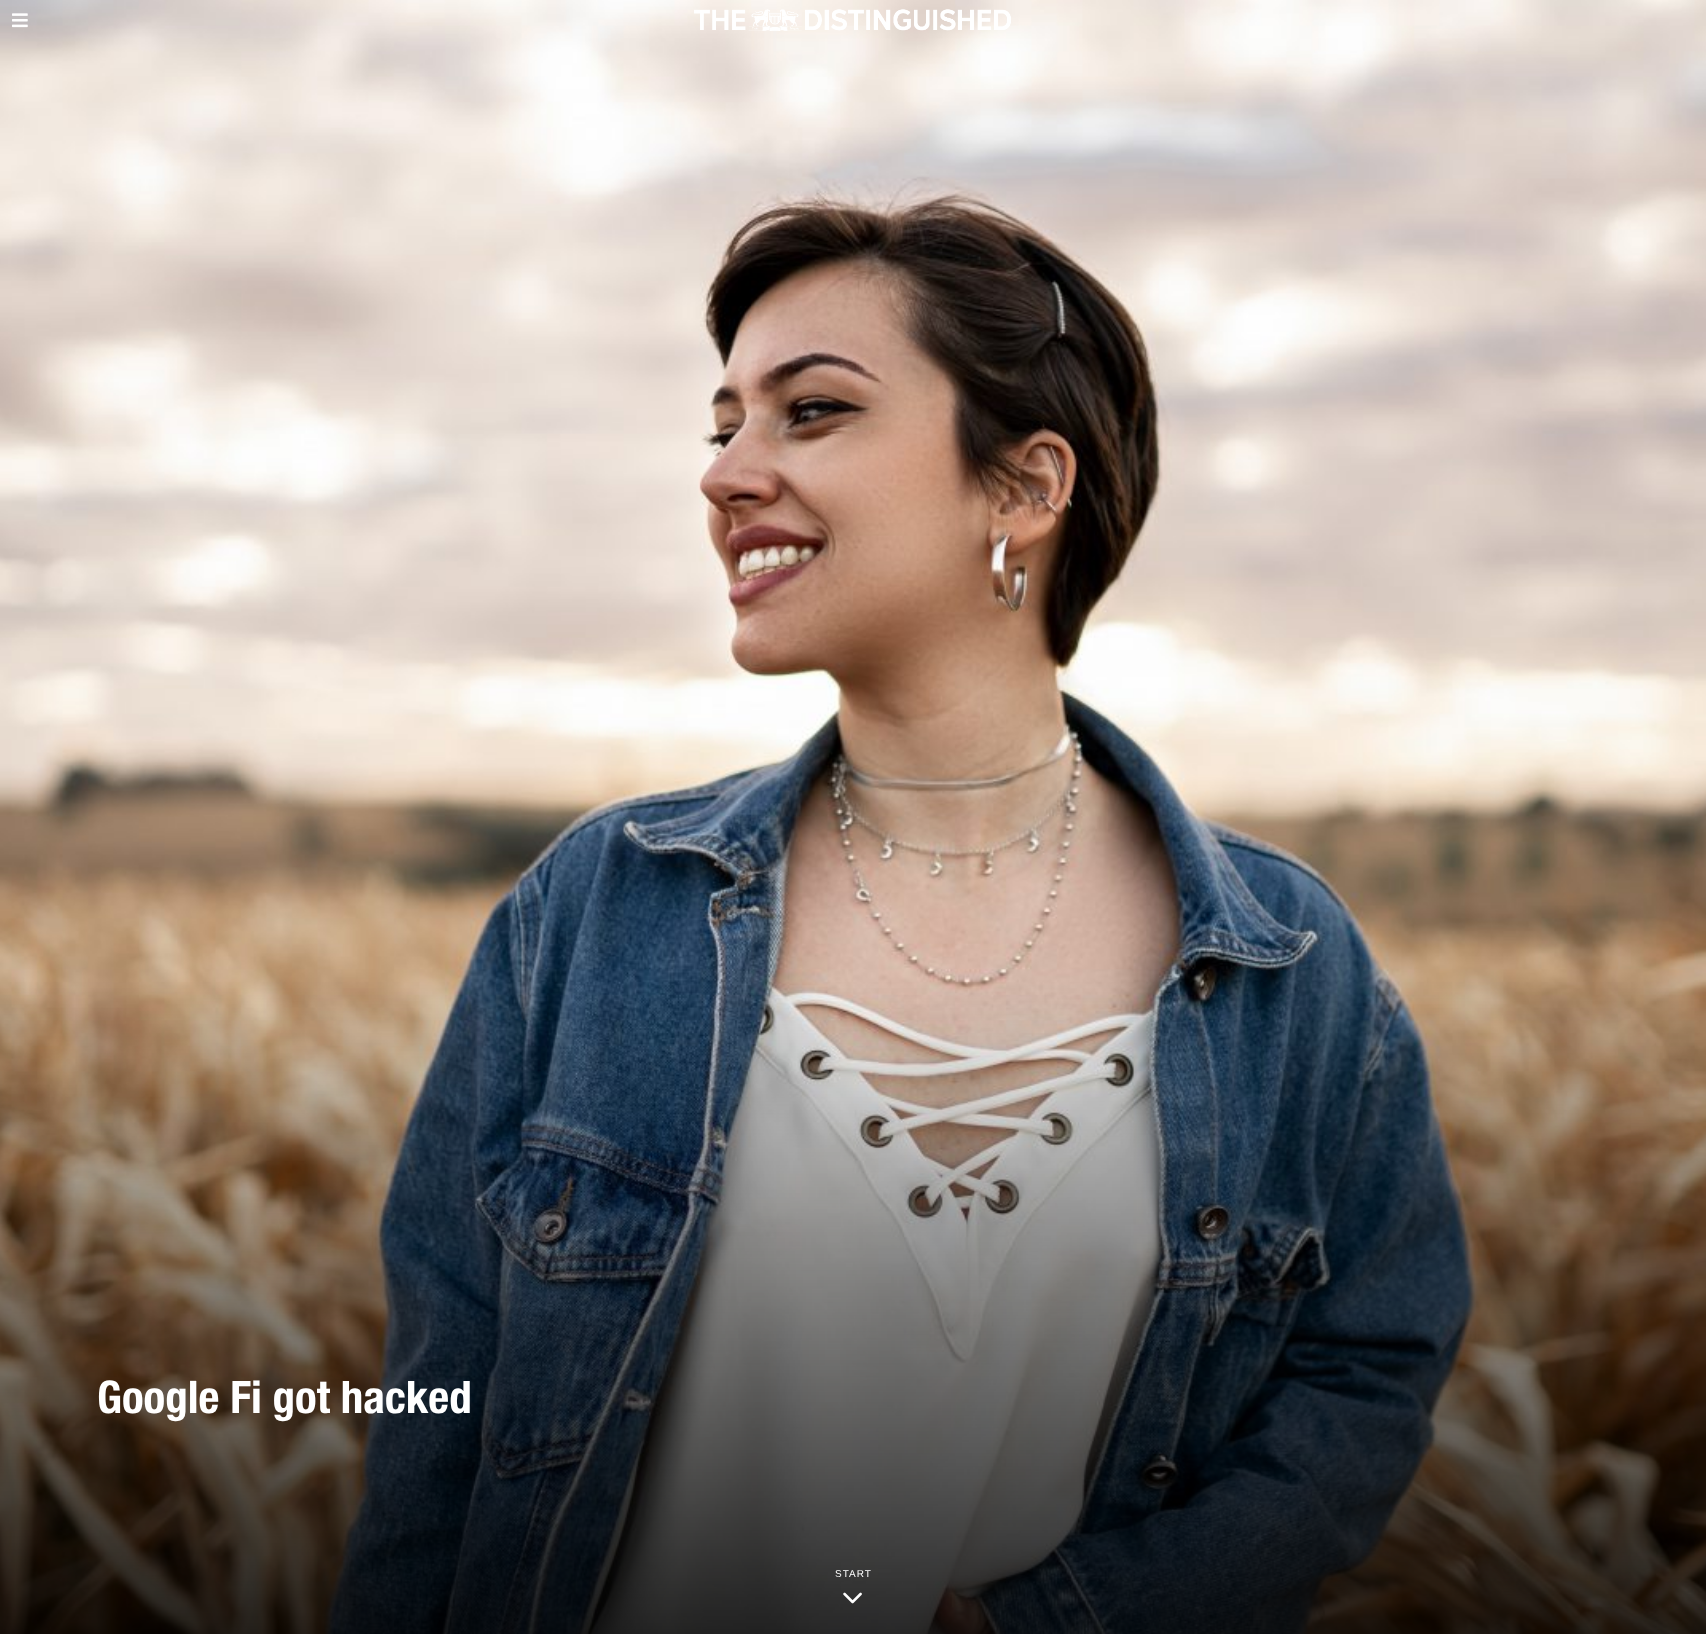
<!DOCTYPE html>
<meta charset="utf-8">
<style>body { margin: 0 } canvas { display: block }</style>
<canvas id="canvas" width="1706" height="1634"></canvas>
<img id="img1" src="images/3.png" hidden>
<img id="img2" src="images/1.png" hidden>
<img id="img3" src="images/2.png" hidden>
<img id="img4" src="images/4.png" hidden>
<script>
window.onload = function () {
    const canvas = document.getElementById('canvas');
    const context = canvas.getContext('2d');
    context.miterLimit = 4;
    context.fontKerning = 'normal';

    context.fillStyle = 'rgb(255, 255, 255)';
    context.fillRect(0, 0, 1706, 1634);
    context.drawImage(document.getElementById('img1'), 0, 0, 1706, 1634);
    context.drawImage(document.getElementById('img2'), 12, 13, 16, 15);
    context.drawImage(document.getElementById('img3'), 694, 9, 317, 22);
    context.drawImage(document.getElementById('img4'), 843, 1592, 19, 12);
    context.font = 'bold 45px Helvetica Neue';
    context.fillText('Google Fi got hacked', 97, 1413);
    context.letterSpacing = '1px';
    context.font = '10px Liberation Sans';
    context.fillText('START', 835, 1577);
};
</script>
